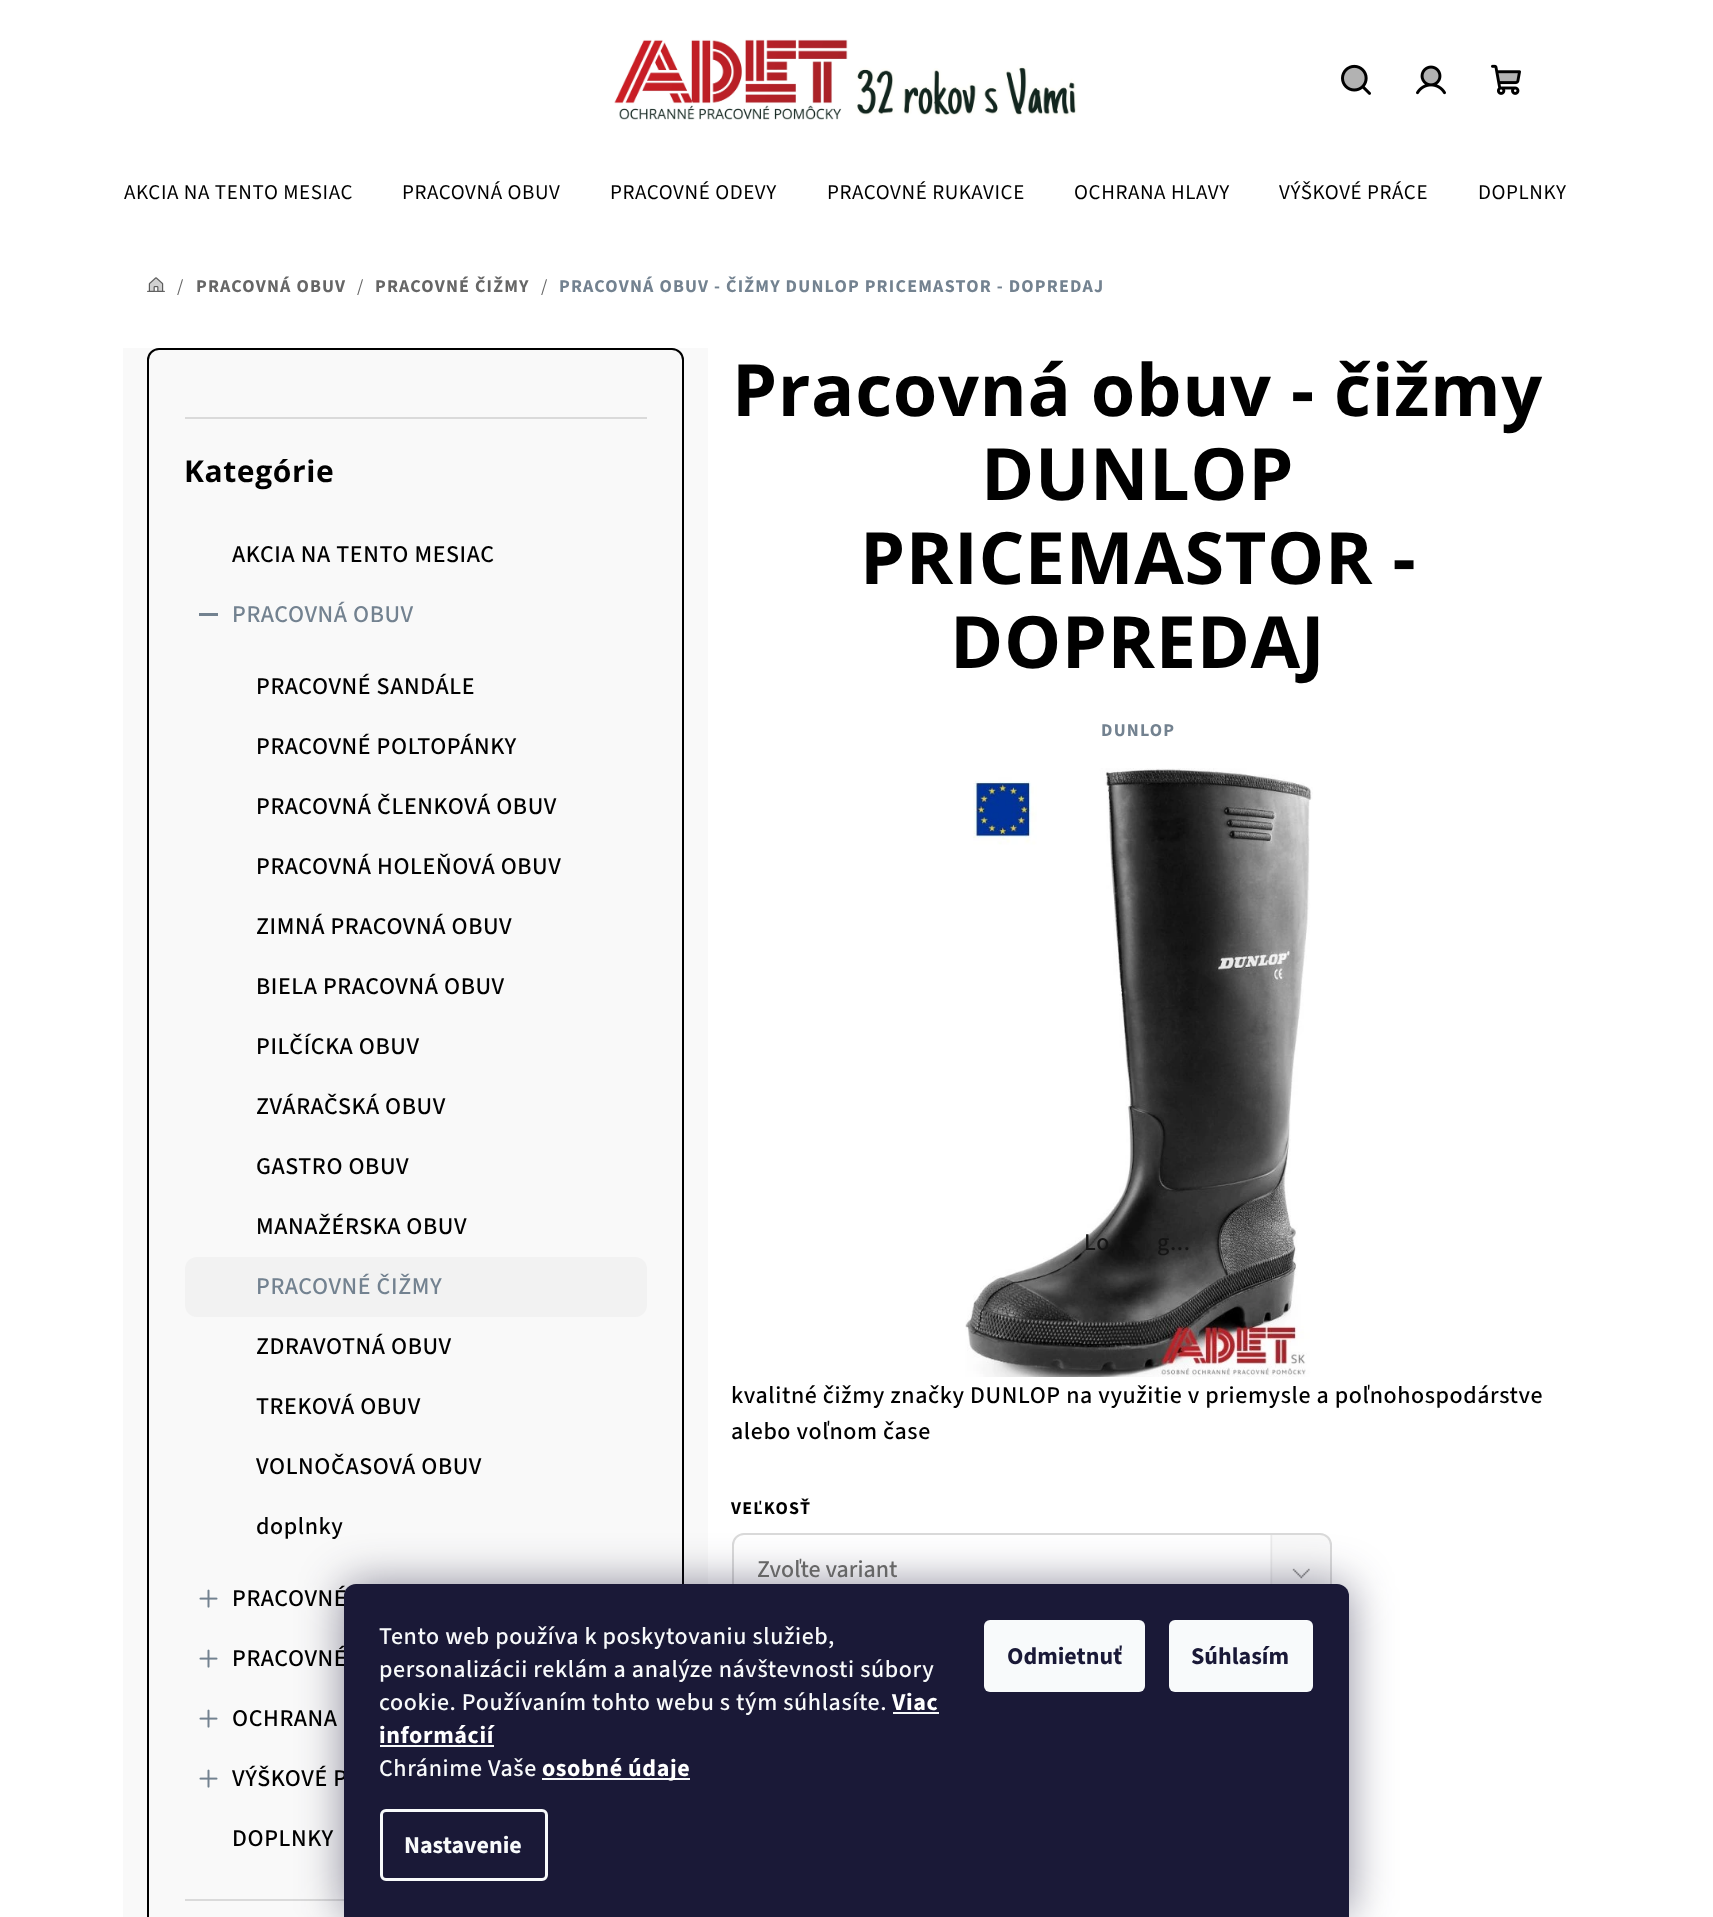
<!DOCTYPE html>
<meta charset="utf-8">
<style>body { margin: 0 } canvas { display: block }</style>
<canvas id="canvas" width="1713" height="1917"></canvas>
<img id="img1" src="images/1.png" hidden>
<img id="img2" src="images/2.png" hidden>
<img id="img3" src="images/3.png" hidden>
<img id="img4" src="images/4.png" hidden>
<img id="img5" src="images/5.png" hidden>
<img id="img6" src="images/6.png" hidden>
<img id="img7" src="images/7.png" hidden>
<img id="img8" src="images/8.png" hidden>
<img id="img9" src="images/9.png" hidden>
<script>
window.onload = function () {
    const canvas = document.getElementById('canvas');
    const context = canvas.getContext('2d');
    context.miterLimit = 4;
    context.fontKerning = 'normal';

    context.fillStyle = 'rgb(255, 255, 255)';
    context.fillRect(0, 0, 1713, 1917);
    context.drawImage(document.getElementById('img1'), 614, 39, 463, 81);
    context.drawImage(document.getElementById('img2'), 1341, 64, 30, 31);
    context.fillStyle = 'rgba(0, 0, 0, 0.3)';
    context.beginPath();
    context.moveTo(1354.5, 90);
    context.bezierCurveTo(1370, 90, 1370, 66.5, 1354.5, 66.5);
    context.bezierCurveTo(1339, 66.5, 1339, 90, 1354.5, 90);
    context.closePath();
    context.fill();
    context.drawImage(document.getElementById('img3'), 1416, 65, 30, 30);
    context.beginPath();
    context.moveTo(1431, 85);
    context.bezierCurveTo(1442.5, 85, 1442.5, 67, 1431, 67);
    context.bezierCurveTo(1419.5, 67, 1419.5, 85, 1431, 85);
    context.closePath();
    context.fill();
    context.drawImage(document.getElementById('img4'), 1491, 64, 30, 31);
    context.beginPath();
    context.moveTo(1499, 82.5);
    context.lineTo(1513, 82.5);
    context.bezierCurveTo(1517, 82.5, 1517.5, 83, 1518, 79.5);
    context.lineTo(1519.5, 71.5);
    context.lineTo(1497, 71.5);
    context.closePath();
    context.fill();
    context.drawImage(document.getElementById('img5'), 147, 277, 18, 15);
    context.drawImage(document.getElementById('img6'), 149, 278, 14, 14);
    context.fillStyle = 'rgb(249, 249, 249)';
    context.fillRect(123, 348, 585, 1569);
    context.beginPath();
    context.roundRect(148, 349, 535, 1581, 11);
    context.strokeStyle = 'rgb(0, 0, 0)';
    context.lineWidth = 2;
    context.stroke();
    context.fillStyle = 'rgb(218, 218, 218)';
    context.fillRect(185, 417, 462, 2);
    context.fillStyle = 'rgb(115, 130, 144)';
    context.fillRect(199, 613, 19, 3);
    context.fillStyle = 'rgb(242, 242, 242)';
    context.beginPath();
    context.roundRect(185, 1257, 462, 60, 12);
    context.fill();
    context.drawImage(document.getElementById('img7'), 199, 1589, 19, 19);
    context.drawImage(document.getElementById('img7'), 199, 1649, 19, 19);
    context.drawImage(document.getElementById('img7'), 199, 1709, 19, 19);
    context.drawImage(document.getElementById('img7'), 199, 1769, 19, 19);
    context.fillStyle = 'rgb(218, 218, 218)';
    context.fillRect(185, 1899, 159, 2);
    context.drawImage(document.getElementById('img8'), 965, 768, 348, 609);
    context.drawImage(document.getElementById('img9'), 1270, 1533, 60, 51);
    context.beginPath();
    context.roundRect(733, 1534, 598, 70, 11);
    context.strokeStyle = 'rgb(218, 218, 218)';
    context.stroke();
    context.fillStyle = 'rgba(27, 25, 57, 0.5)';
    context.filter = 'blur(22.5px)';
    context.beginPath();
    context.roundRect(344, 1584, 1005, 333, 12);
    context.fill();
    context.filter = 'none';
    context.letterSpacing = '0.6px';
    context.font = '21px "Source Sans 3"';
    context.fillStyle = 'rgb(0, 0, 0)';
    context.fillText('AKCIA NA TENTO MESIAC', 124, 199);
    context.fillText('PRACOVNÁ OBUV', 402, 199);
    context.fillText('PRACOVNÉ ODEVY', 610, 199);
    context.fillText('PRACOVNÉ RUKAVICE', 827, 199);
    context.fillText('OCHRANA HLAVY', 1074, 199);
    context.fillText('VÝŠKOVÉ PRÁCE', 1279, 199);
    context.fillText('DOPLNKY', 1478, 199);
    context.letterSpacing = '1.2px';
    context.font = '18px "Source Sans 3"';
    context.fillStyle = 'rgb(102, 102, 102)';
    context.fillText('/', 177, 292);
    context.font = 'bold 18px "Source Sans 3"';
    context.fillText('PRACOVNÁ OBUV', 196, 292);
    context.font = '18px "Source Sans 3"';
    context.fillText('/', 357, 292);
    context.font = 'bold 18px "Source Sans 3"';
    context.fillText('PRACOVNÉ ČIŽMY', 375, 292);
    context.font = '18px "Source Sans 3"';
    context.fillText('/', 541, 292);
    context.font = 'bold 18px "Source Sans 3"';
    context.fillStyle = 'rgb(115, 130, 144)';
    context.fillText('PRACOVNÁ OBUV - ČIŽMY DUNLOP PRICEMASTOR - DOPREDAJ', 559, 292);
    context.letterSpacing = '0.6px';
    context.font = 'bold 30px Open Sans';
    context.fillStyle = 'rgb(0, 0, 0)';
    context.fillText('Kategórie', 184, 482);
    context.font = '500 24px "Source Sans 3"';
    context.fillText('AKCIA NA TENTO MESIAC', 232, 562);
    context.fillStyle = 'rgb(115, 130, 144)';
    context.fillText('PRACOVNÁ OBUV', 232, 622);
    context.fillStyle = 'rgb(0, 0, 0)';
    context.fillText('PRACOVNÉ SANDÁLE', 256, 694);
    context.fillText('PRACOVNÉ POLTOPÁNKY', 256, 754);
    context.fillText('PRACOVNÁ ČLENKOVÁ OBUV', 256, 814);
    context.fillText('PRACOVNÁ HOLEŇOVÁ OBUV', 256, 874);
    context.fillText('ZIMNÁ PRACOVNÁ OBUV', 256, 934);
    context.fillText('BIELA PRACOVNÁ OBUV', 256, 994);
    context.fillText('PILČÍCKA OBUV', 256, 1054);
    context.fillText('ZVÁRAČSKÁ OBUV', 256, 1114);
    context.fillText('GASTRO OBUV', 256, 1174);
    context.fillText('MANAŽÉRSKA OBUV', 256, 1234);
    context.fillStyle = 'rgb(115, 130, 144)';
    context.fillText('PRACOVNÉ ČIŽMY', 256, 1294);
    context.fillStyle = 'rgb(0, 0, 0)';
    context.fillText('ZDRAVOTNÁ OBUV', 256, 1354);
    context.fillText('TREKOVÁ OBUV', 256, 1414);
    context.fillText('VOLNOČASOVÁ OBUV', 256, 1474);
    context.fillText('doplnky', 256, 1534);
    context.fillText('PRACOVNÉ', 232, 1606);
    context.fillText('PRACOVNÉ', 232, 1666);
    context.fillText('OCHRANA', 232, 1726);
    context.fillText('VÝŠKOVÉ P', 232, 1786);
    context.fillText('DOPLNKY', 232, 1846);
    context.font = 'bold 72px Open Sans';
    context.fillText('Pracovná obuv - čižmy', 732, 416);
    context.fillText('DUNLOP', 981, 500);
    context.fillText('PRICEMASTOR -', 860, 584);
    context.fillText('DOPREDAJ', 950, 668);
    context.letterSpacing = '1.2px';
    context.font = 'bold 18px "Source Sans 3"';
    context.fillStyle = 'rgb(115, 130, 144)';
    context.fillText('DUNLOP', 1101, 736);
    context.letterSpacing = '0.6px';
    context.font = '500 24px "Source Sans 3"';
    context.fillStyle = 'rgb(21, 21, 21)';
    context.fillText('Lo', 1084, 1250);
    context.fillText('g...', 1157, 1250);
    context.fillStyle = 'rgb(0, 0, 0)';
    context.fillText('kvalitné čižmy značky DUNLOP na využitie v priemysle a poľnohospodárstve', 731, 1403);
    context.fillText('alebo voľnom čase', 731, 1439);
    context.letterSpacing = '1.2px';
    context.font = 'bold 18px "Source Sans 3"';
    context.fillText('VEĽKOSŤ', 731, 1514);
    context.letterSpacing = '0px';
    context.font = '500 24px "Source Sans 3"';
    context.fillStyle = 'rgb(102, 102, 102)';
    context.fillText('Zvoľte variant', 757, 1577);
    context.fillStyle = 'rgb(26, 25, 55)';
    context.beginPath();
    context.roundRect(344, 1584, 1005, 333, [12, 12, 0, 0]);
    context.fill();
    context.letterSpacing = '0.6px';
    context.fillStyle = 'rgb(248, 250, 251)';
    context.fillText('Tento web používa k poskytovaniu služieb,', 379, 1644);
    context.fillText('personalizácii reklám a analýze návštevnosti súbory', 379, 1677);
    context.fillText('cookie. Používaním tohto webu s tým súhlasíte.', 379, 1710);
    context.font = 'bold 24px "Source Sans 3"';
    context.fillStyle = 'rgb(255, 255, 255)';
    context.fillText('Viac', 892, 1710);
    context.fillStyle = 'rgb(248, 250, 251)';
    context.fillRect(893, 1712, 46, 2);
    context.fillStyle = 'rgb(255, 255, 255)';
    context.fillText('informácií', 379, 1743);
    context.fillStyle = 'rgb(248, 250, 251)';
    context.fillRect(380, 1745, 114, 2);
    context.font = '500 24px "Source Sans 3"';
    context.fillText('Chránime Vaše', 379, 1776);
    context.fillRect(542, 1778, 148, 2);
    context.font = 'bold 24px "Source Sans 3"';
    context.fillStyle = 'rgb(255, 255, 255)';
    context.fillText('osobné údaje', 542, 1776);
    context.beginPath();
    context.roundRect(381.5, 1810.5, 165, 69, 4.5);
    context.strokeStyle = 'rgb(248, 250, 251)';
    context.lineWidth = 3;
    context.stroke();
    context.letterSpacing = '0px';
    context.fillStyle = 'rgb(248, 250, 251)';
    context.fillText('Nastavenie', 404, 1853);
    context.beginPath();
    context.roundRect(984, 1620, 161, 72, 6);
    context.fill();
    context.fillStyle = 'rgb(26, 25, 55)';
    context.fillText('Odmietnuť', 1007, 1664);
    context.fillStyle = 'rgb(248, 250, 251)';
    context.beginPath();
    context.roundRect(1169, 1620, 144, 72, 6);
    context.fill();
    context.fillStyle = 'rgb(26, 25, 55)';
    context.fillText('Súhlasím', 1191, 1664);
};
</script>
